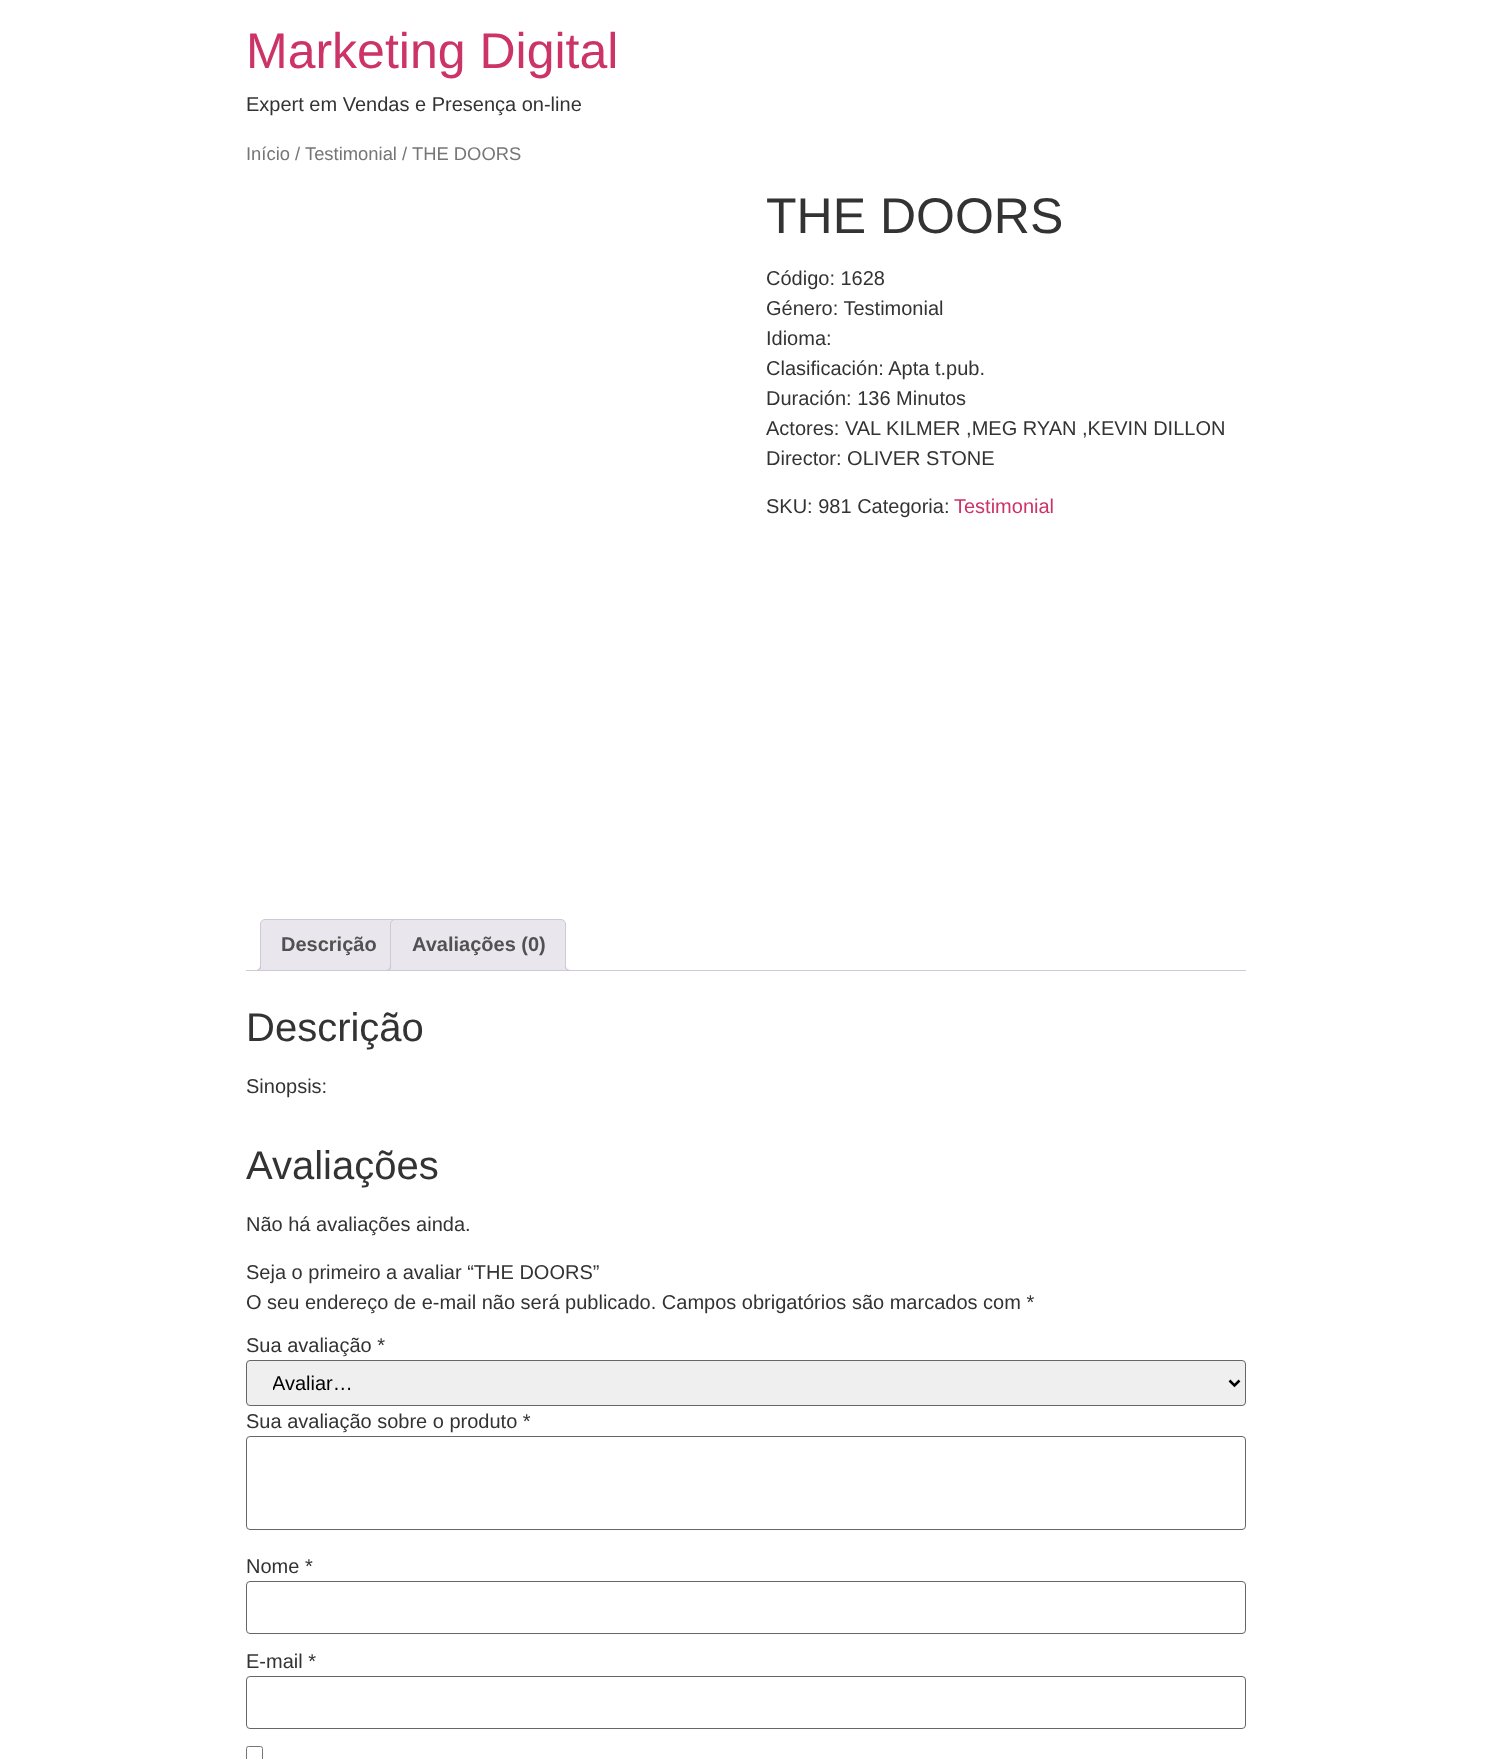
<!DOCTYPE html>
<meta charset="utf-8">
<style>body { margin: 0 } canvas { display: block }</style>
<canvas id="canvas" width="1491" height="1759"></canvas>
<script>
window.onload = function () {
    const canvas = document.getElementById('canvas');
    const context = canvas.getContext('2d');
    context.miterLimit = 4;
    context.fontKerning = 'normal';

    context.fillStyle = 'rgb(255, 255, 255)';
    context.fillRect(0, 0, 1491, 1759);
    context.fillStyle = 'rgb(233, 230, 237)';
    context.beginPath();
    context.roundRect(260.5, 919.5, 137, 51, [4.5, 4.5, 0, 0]);
    context.fill();
    context.strokeStyle = 'rgb(207, 200, 216)';
    context.stroke();
    context.save();
    context.beginPath();
    context.rect(246, 919, 1000, 52);
    context.clip();
    context.beginPath();
    context.moveTo(258, 971);
    context.lineTo(258, 974);
    context.bezierCurveTo(262, 974, 264, 972, 264, 968);
    context.lineTo(261, 968);
    context.bezierCurveTo(260.5, 969.5, 259.5, 970.5, 258, 971);
    context.closePath();
    context.fill();
    context.restore();
    context.fillStyle = 'rgb(207, 200, 216)';
    context.beginPath();
    context.moveTo(255, 965);
    context.lineTo(261, 965);
    context.bezierCurveTo(261, 969.5, 259.5, 971, 255, 971);
    context.closePath();
    context.moveTo(255, 965);
    context.lineTo(260, 965);
    context.bezierCurveTo(260, 968.5, 258.5, 970, 255, 970);
    context.closePath();
    context.fill('evenodd');
    context.fillStyle = 'rgb(233, 230, 237)';
    context.beginPath();
    context.roundRect(390.5, 919.5, 175, 51, [4.5, 4.5, 0, 0]);
    context.fill();
    context.stroke();
    context.save();
    context.beginPath();
    context.rect(246, 919, 1000, 52);
    context.clip();
    context.beginPath();
    context.moveTo(388, 971);
    context.lineTo(388, 974);
    context.bezierCurveTo(392, 974, 394, 972, 394, 968);
    context.lineTo(391, 968);
    context.bezierCurveTo(390.5, 969.5, 389.5, 970.5, 388, 971);
    context.closePath();
    context.fill();
    context.restore();
    context.fillStyle = 'rgb(207, 200, 216)';
    context.beginPath();
    context.moveTo(385, 965);
    context.lineTo(391, 965);
    context.bezierCurveTo(391, 969.5, 389.5, 971, 385, 971);
    context.closePath();
    context.moveTo(385, 965);
    context.lineTo(390, 965);
    context.bezierCurveTo(390, 968.5, 388.5, 970, 385, 970);
    context.closePath();
    context.fill('evenodd');
    context.save();
    context.beginPath();
    context.rect(246, 919, 1000, 52);
    context.clip();
    context.fillStyle = 'rgb(233, 230, 237)';
    context.beginPath();
    context.moveTo(563, 968);
    context.bezierCurveTo(563, 972, 565, 974, 569, 974);
    context.lineTo(569, 971);
    context.bezierCurveTo(567.5, 971, 566, 969.5, 565.5, 968);
    context.closePath();
    context.fill();
    context.restore();
    context.beginPath();
    context.moveTo(565, 965);
    context.lineTo(571, 965);
    context.lineTo(571, 971);
    context.bezierCurveTo(568, 971, 565, 970, 565, 966);
    context.closePath();
    context.moveTo(566, 965);
    context.lineTo(571, 965);
    context.lineTo(571, 970);
    context.bezierCurveTo(569, 970, 566, 969, 566, 966);
    context.closePath();
    context.fill('evenodd');
    context.fillRect(246, 970, 1000, 1);
    context.fillStyle = 'rgb(239, 239, 239)';
    context.beginPath();
    context.roundRect(246.5, 1360.5, 999, 45, 3.5);
    context.fill();
    context.strokeStyle = 'rgb(102, 102, 102)';
    context.stroke();
    context.beginPath();
    context.moveTo(1229.5, 1380.5);
    context.lineTo(1234.5, 1385.5);
    context.lineTo(1239.5, 1380.5);
    context.strokeStyle = 'rgb(0, 0, 0)';
    context.lineWidth = 2.5;
    context.stroke();
    context.beginPath();
    context.roundRect(246.5, 1436.5, 999, 93, 3.5);
    context.strokeStyle = 'rgb(102, 102, 102)';
    context.lineWidth = 1;
    context.stroke();
    context.beginPath();
    context.roundRect(246.5, 1581.5, 999, 52, 3.5);
    context.stroke();
    context.beginPath();
    context.roundRect(246.5, 1676.5, 999, 52, 3.5);
    context.stroke();
    context.beginPath();
    context.roundRect(246.5, 1746.5, 16, 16, 2);
    context.strokeStyle = 'rgb(118, 118, 118)';
    context.stroke();
    context.font = '50px Liberation Sans';
    context.fillStyle = 'rgb(204, 51, 102)';
    context.fillText('Marketing Digital', 246, 68);
    context.font = '20px Liberation Sans';
    context.fillStyle = 'rgb(51, 51, 51)';
    context.fillText('Expert em Vendas e Presença on-line', 246, 111);
    context.font = '18.4px Liberation Sans';
    context.fillStyle = 'rgb(118, 118, 118)';
    context.fillText('Início / Testimonial / THE DOORS', 246, 160);
    context.font = '50px Liberation Sans';
    context.fillStyle = 'rgb(51, 51, 51)';
    context.fillText('THE DOORS', 766, 233);
    context.font = '20px Liberation Sans';
    context.fillText('Código: 1628', 766, 285);
    context.fillText('Género: Testimonial', 766, 315);
    context.fillText('Idioma:', 766, 345);
    context.fillText('Clasificación: Apta t.pub.', 766, 375);
    context.fillText('Duración: 136 Minutos', 766, 405);
    context.fillText('Actores: VAL KILMER ,MEG RYAN ,KEVIN DILLON', 766, 435);
    context.fillText('Director: OLIVER STONE', 766, 465);
    context.fillText('SKU: 981 Categoria:', 766, 513);
    context.fillStyle = 'rgb(204, 51, 102)';
    context.fillText('Testimonial', 954, 513);
    context.font = 'bold 20px Liberation Sans';
    context.fillStyle = 'rgb(81, 81, 81)';
    context.fillText('Descrição', 281, 951);
    context.fillText('Avaliações (0)', 412, 951);
    context.font = '40px Liberation Sans';
    context.fillStyle = 'rgb(51, 51, 51)';
    context.fillText('Descrição', 246, 1041);
    context.font = '20px Liberation Sans';
    context.fillText('Sinopsis:', 246, 1093);
    context.font = '40px Liberation Sans';
    context.fillText('Avaliações', 246, 1179);
    context.font = '20px Liberation Sans';
    context.fillText('Não há avaliações ainda.', 246, 1231);
    context.fillText('Seja o primeiro a avaliar “THE DOORS”', 246, 1279);
    context.fillText('O seu endereço de e-mail não será publicado. Campos obrigatórios são marcados com *', 246, 1309);
    context.fillText('Sua avaliação *', 246, 1352);
    context.save();
    context.beginPath();
    context.rect(273, 1371, 932, 24);
    context.clip();
    context.fillStyle = 'rgb(0, 0, 0)';
    context.fillText('Avaliar…', 272, 1390);
    context.restore();
    context.fillText('Sua avaliação sobre o produto *', 246, 1428);
    context.fillText('Nome *', 246, 1573);
    context.fillText('E-mail *', 246, 1668);
};
</script>
